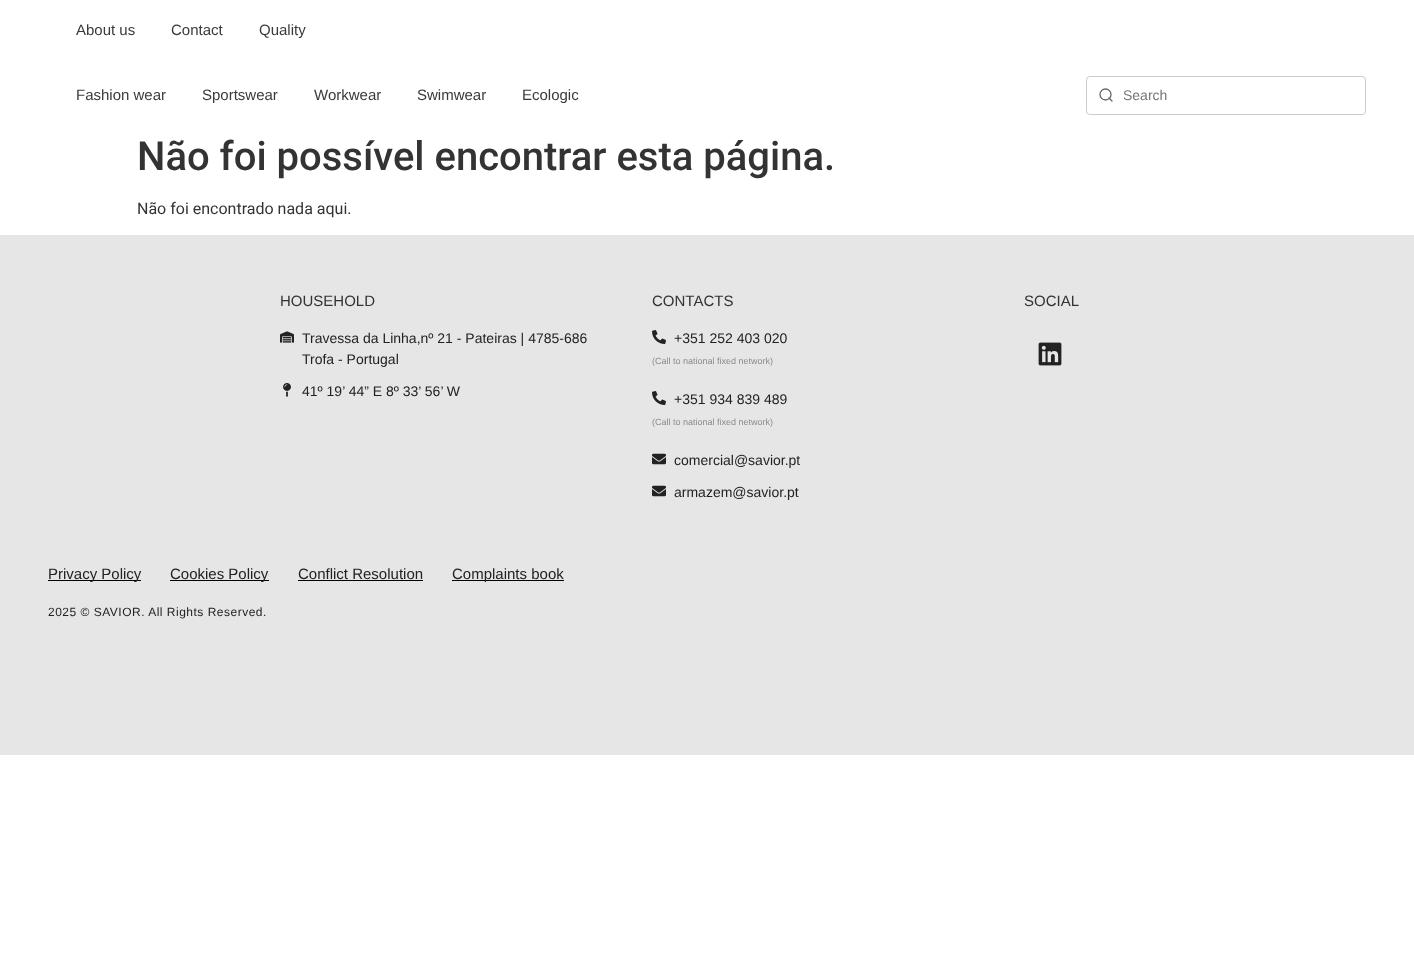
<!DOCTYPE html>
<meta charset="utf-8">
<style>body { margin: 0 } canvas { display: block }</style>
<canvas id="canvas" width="1414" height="971"></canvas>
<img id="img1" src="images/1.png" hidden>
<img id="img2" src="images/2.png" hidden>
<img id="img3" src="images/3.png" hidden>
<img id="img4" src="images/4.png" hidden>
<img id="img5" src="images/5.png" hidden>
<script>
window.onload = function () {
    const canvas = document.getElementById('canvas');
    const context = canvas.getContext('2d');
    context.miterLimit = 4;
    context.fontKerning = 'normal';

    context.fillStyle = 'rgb(255, 255, 255)';
    context.fillRect(0, 0, 1414, 971);
    context.beginPath();
    context.roundRect(1086.5, 76.5, 279, 38, 3.5);
    context.strokeStyle = 'rgb(204, 204, 204)';
    context.stroke();
    context.beginPath();
    context.arc(1105.5, 94.5, 5.5, 0, 2 * Math.PI);
    context.strokeStyle = 'rgb(102, 102, 102)';
    context.lineWidth = 1.3;
    context.stroke();
    context.beginPath();
    context.moveTo(1112, 101);
    context.lineTo(1109, 98);
    context.lineCap = 'round';
    context.lineJoin = 'round';
    context.stroke();
    context.fillStyle = 'rgb(230, 230, 230)';
    context.fillRect(0, 235, 1414, 520);
    context.drawImage(document.getElementById('img1'), 280, 331, 14, 12);
    context.drawImage(document.getElementById('img2'), 283, 383, 8, 14);
    context.drawImage(document.getElementById('img3'), 652, 330, 14, 14);
    context.drawImage(document.getElementById('img3'), 652, 391, 14, 14);
    context.drawImage(document.getElementById('img4'), 652, 453, 14, 12);
    context.drawImage(document.getElementById('img4'), 652, 485, 14, 12);
    context.drawImage(document.getElementById('img5'), 1038, 342, 24, 24);
    context.fillStyle = 'rgb(0, 0, 0)';
    context.fillRect(48, 580, 93, 1);
    context.fillRect(170, 580, 99, 1);
    context.fillRect(298, 580, 125, 1);
    context.fillRect(452, 580, 112, 1);
    context.font = '15px Liberation Sans';
    context.fillStyle = 'rgb(58, 58, 58)';
    context.fillText('About us', 76, 35);
    context.fillText('Contact', 171, 35);
    context.fillText('Quality', 259, 35);
    context.fillText('Fashion wear', 76, 100);
    context.fillText('Sportswear', 202, 100);
    context.fillText('Workwear', 314, 100);
    context.fillText('Swimwear', 417, 100);
    context.fillText('Ecologic', 522, 100);
    context.font = '14px Liberation Sans';
    context.fillStyle = 'rgb(117, 117, 117)';
    context.fillText('Search', 1123, 100);
    context.font = '500 40px Roboto';
    context.fillStyle = 'rgb(51, 51, 51)';
    context.fillText('Não foi possível encontrar esta página.', 137, 170);
    context.font = '16px Roboto';
    context.fillText('Não foi encontrado nada aqui.', 137, 214);
    context.font = '15px Liberation Sans';
    context.fillText('HOUSEHOLD', 280, 306);
    context.font = '14px Liberation Sans';
    context.fillStyle = 'rgb(34, 34, 34)';
    context.fillText('Travessa da Linha,nº 21 - Pateiras | 4785-686', 302, 343);
    context.fillText('Trofa - Portugal', 302, 364);
    context.fillText('41º 19’ 44” E 8º 33’ 56’ W', 302, 396);
    context.font = '15px Liberation Sans';
    context.fillStyle = 'rgb(51, 51, 51)';
    context.fillText('CONTACTS', 652, 306);
    context.font = '14px Liberation Sans';
    context.fillStyle = 'rgb(34, 34, 34)';
    context.fillText('+351 252 403 020', 674, 343);
    context.font = '9px Liberation Sans';
    context.fillStyle = 'rgb(139, 139, 139)';
    context.fillText('(Call to national fixed network)', 652, 364);
    context.font = '14px Liberation Sans';
    context.fillStyle = 'rgb(34, 34, 34)';
    context.fillText('+351 934 839 489', 674, 404);
    context.font = '9px Liberation Sans';
    context.fillStyle = 'rgb(139, 139, 139)';
    context.fillText('(Call to national fixed network)', 652, 425);
    context.font = '14px Liberation Sans';
    context.fillStyle = 'rgb(34, 34, 34)';
    context.fillText('comercial@savior.pt', 674, 465);
    context.fillText('armazem@savior.pt', 674, 497);
    context.font = '15px Liberation Sans';
    context.fillStyle = 'rgb(51, 51, 51)';
    context.fillText('SOCIAL', 1024, 306);
    context.fillStyle = 'rgb(34, 34, 34)';
    context.fillText('Privacy Policy', 48, 579);
    context.fillText('Cookies Policy', 170, 579);
    context.fillText('Conflict Resolution', 298, 579);
    context.fillText('Complaints book', 452, 579);
    context.letterSpacing = '0.5px';
    context.font = '12px Liberation Sans';
    context.fillText('2025 © SAVIOR. All Rights Reserved.', 48, 616);
};
</script>
